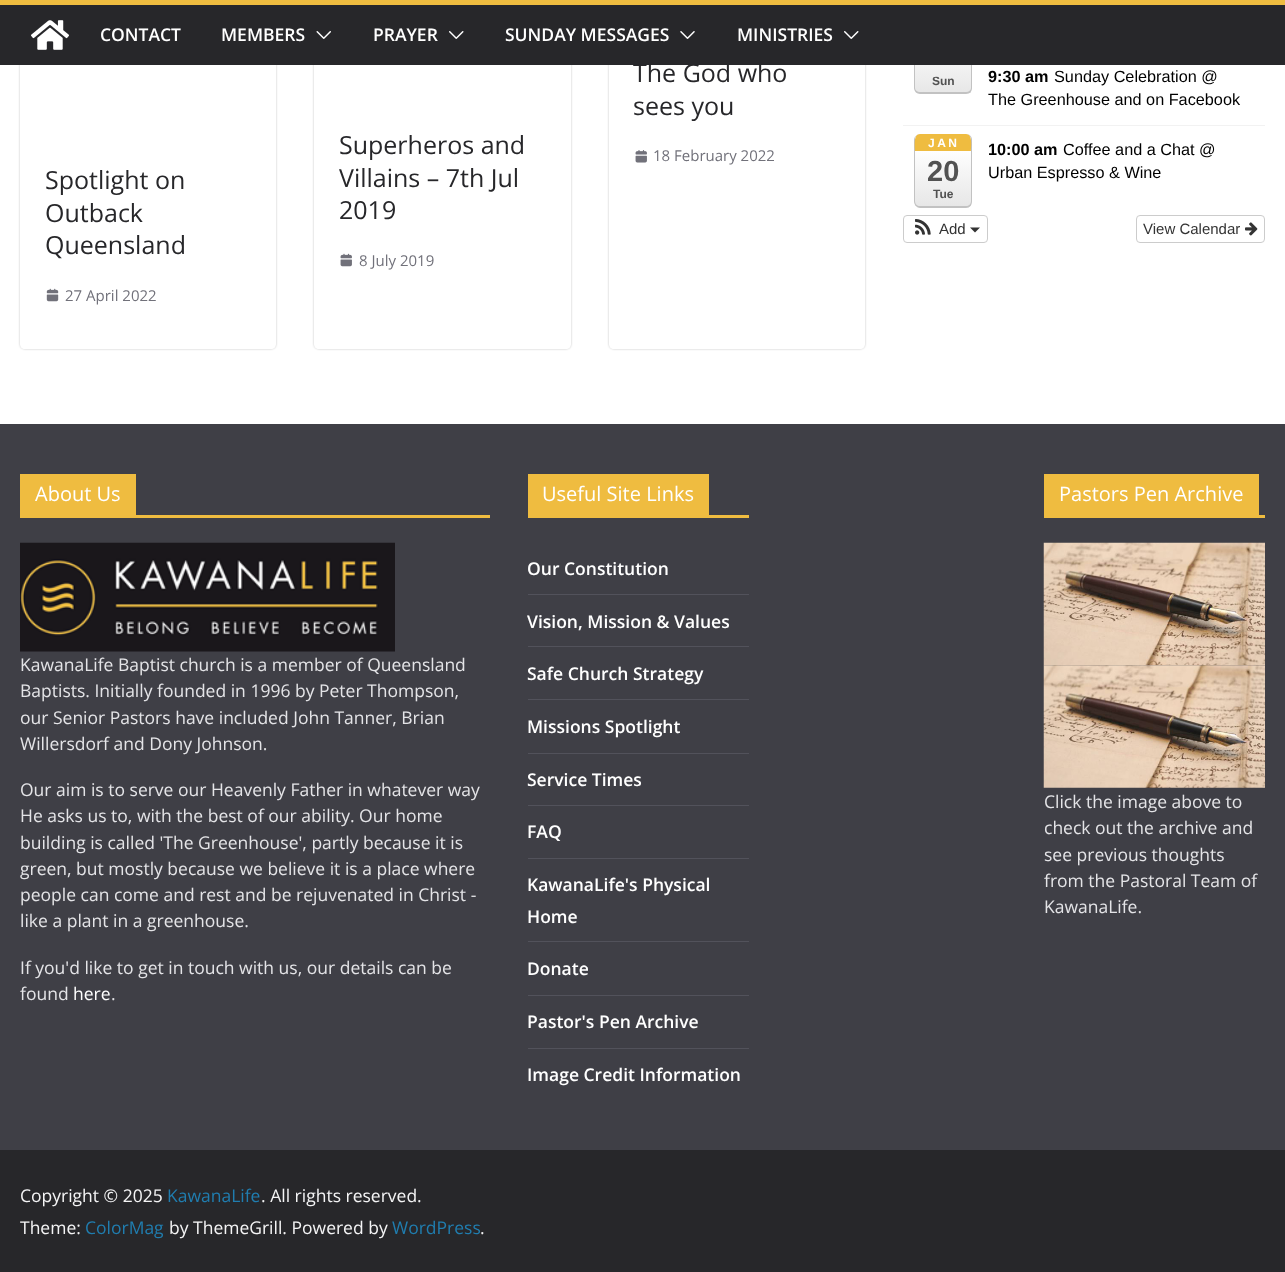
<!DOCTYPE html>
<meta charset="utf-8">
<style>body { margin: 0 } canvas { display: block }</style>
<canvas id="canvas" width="1285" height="1272"></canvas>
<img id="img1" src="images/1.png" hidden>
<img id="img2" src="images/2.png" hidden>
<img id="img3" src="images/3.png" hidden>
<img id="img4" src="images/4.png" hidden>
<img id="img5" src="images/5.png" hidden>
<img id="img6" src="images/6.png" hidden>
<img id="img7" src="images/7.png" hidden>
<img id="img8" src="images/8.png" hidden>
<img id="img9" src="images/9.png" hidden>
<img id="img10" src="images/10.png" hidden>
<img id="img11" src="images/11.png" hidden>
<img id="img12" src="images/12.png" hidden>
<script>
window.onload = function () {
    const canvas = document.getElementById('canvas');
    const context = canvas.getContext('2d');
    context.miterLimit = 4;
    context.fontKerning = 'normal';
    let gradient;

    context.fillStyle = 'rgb(255, 255, 255)';
    context.fillRect(0, 0, 1285, 1272);
    context.save();
    context.beginPath();
    context.moveTo(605, 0);
    context.lineTo(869, 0);
    context.lineTo(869, 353);
    context.lineTo(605, 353);
    context.closePath();
    context.moveTo(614, -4);
    context.lineTo(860, -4);
    context.bezierCurveTo(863, -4, 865, -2, 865, 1);
    context.lineTo(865, 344);
    context.bezierCurveTo(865, 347, 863, 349, 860, 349);
    context.lineTo(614, 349);
    context.bezierCurveTo(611, 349, 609, 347, 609, 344);
    context.lineTo(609, 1);
    context.bezierCurveTo(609, -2, 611, -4, 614, -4);
    context.closePath();
    context.clip('evenodd');
    context.fillStyle = 'rgba(0, 0, 0, 0.24)';
    context.filter = 'blur(1px)';
    context.beginPath();
    context.roundRect(609, -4, 256, 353, 5);
    context.fill();
    context.filter = 'none';
    context.restore();
    context.save();
    context.beginPath();
    context.moveTo(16, 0);
    context.lineTo(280, 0);
    context.lineTo(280, 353);
    context.lineTo(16, 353);
    context.closePath();
    context.moveTo(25, -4);
    context.lineTo(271, -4);
    context.bezierCurveTo(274, -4, 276, -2, 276, 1);
    context.lineTo(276, 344);
    context.bezierCurveTo(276, 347, 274, 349, 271, 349);
    context.lineTo(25, 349);
    context.bezierCurveTo(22, 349, 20, 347, 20, 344);
    context.lineTo(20, 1);
    context.bezierCurveTo(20, -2, 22, -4, 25, -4);
    context.closePath();
    context.clip('evenodd');
    context.fillStyle = 'rgba(0, 0, 0, 0.24)';
    context.filter = 'blur(1px)';
    context.beginPath();
    context.roundRect(20, -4, 256, 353, 5);
    context.fill();
    context.filter = 'none';
    context.restore();
    context.save();
    context.beginPath();
    context.moveTo(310, 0);
    context.lineTo(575, 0);
    context.lineTo(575, 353);
    context.lineTo(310, 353);
    context.closePath();
    context.moveTo(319, -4);
    context.lineTo(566, -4);
    context.bezierCurveTo(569, -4, 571, -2, 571, 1);
    context.lineTo(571, 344);
    context.bezierCurveTo(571, 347, 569, 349, 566, 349);
    context.lineTo(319, 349);
    context.bezierCurveTo(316, 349, 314, 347, 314, 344);
    context.lineTo(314, 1);
    context.bezierCurveTo(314, -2, 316, -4, 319, -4);
    context.closePath();
    context.clip('evenodd');
    context.fillStyle = 'rgba(0, 0, 0, 0.24)';
    context.filter = 'blur(1px)';
    context.beginPath();
    context.roundRect(314, -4, 257, 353, 5);
    context.fill();
    context.filter = 'none';
    context.restore();
    context.save();
    context.beginPath();
    context.roundRect(914, 21, 59, 73, 6);
    context.clip();
    gradient = context.createLinearGradient(943, 21, 943, 93);
    gradient.addColorStop(0, 'rgb(255, 255, 255)');
    gradient.addColorStop(0.21, 'rgb(255, 255, 255)');
    gradient.addColorStop(1, 'rgb(231, 231, 231)');
    context.fillStyle = gradient;
    context.fillRect(915, 65, 56, 28);
    context.restore();
    context.fillStyle = 'rgb(194, 194, 194)';
    context.beginPath();
    context.moveTo(920, 21);
    context.lineTo(966, 21);
    context.bezierCurveTo(970, 21, 972, 24, 972, 28);
    context.lineTo(972, 88);
    context.bezierCurveTo(972, 91, 970, 94, 966, 94);
    context.lineTo(920, 94);
    context.bezierCurveTo(917, 94, 914, 91, 914, 88);
    context.lineTo(914, 28);
    context.bezierCurveTo(914, 24, 917, 21, 920, 21);
    context.closePath();
    context.moveTo(920, 21);
    context.lineTo(966, 21);
    context.bezierCurveTo(969, 21, 971, 24, 971, 28);
    context.lineTo(971, 88);
    context.bezierCurveTo(971, 90, 969, 92, 966, 92);
    context.lineTo(920, 92);
    context.bezierCurveTo(917, 92, 915, 90, 915, 88);
    context.lineTo(915, 28);
    context.bezierCurveTo(915, 24, 917, 21, 920, 21);
    context.closePath();
    context.fill('evenodd');
    context.fillStyle = 'rgb(39, 39, 42)';
    context.fillRect(0, 5, 1285, 60);
    context.fillStyle = 'rgb(239, 188, 64)';
    context.fillRect(0, 0, 1285, 5);
    context.drawImage(document.getElementById('img1'), 31, 20, 38, 30);
    context.drawImage(document.getElementById('img2'), 316, 31, 15, 8);
    context.drawImage(document.getElementById('img3'), 449, 31, 15, 8);
    context.drawImage(document.getElementById('img4'), 680, 31, 15, 8);
    context.drawImage(document.getElementById('img3'), 844, 31, 15, 8);
    context.drawImage(document.getElementById('img5'), 635, 150, 12, 13);
    context.drawImage(document.getElementById('img6'), 46, 288, 13, 14);
    context.drawImage(document.getElementById('img7'), 340, 253, 12, 14);
    context.fillStyle = 'rgb(242, 242, 242)';
    context.fillRect(903, 125, 362, 1);
    context.save();
    context.beginPath();
    context.roundRect(914, 134, 59, 74, 6);
    context.clip();
    gradient = context.createLinearGradient(943, 134, 943, 206);
    gradient.addColorStop(0, 'rgb(255, 255, 255)');
    gradient.addColorStop(0.2, 'rgb(255, 255, 255)');
    gradient.addColorStop(1, 'rgb(231, 231, 231)');
    context.fillStyle = gradient;
    context.fillRect(915, 134, 56, 72);
    context.restore();
    context.fillStyle = 'rgb(194, 194, 194)';
    context.beginPath();
    context.moveTo(920, 134);
    context.lineTo(966, 134);
    context.bezierCurveTo(970, 134, 972, 137, 972, 140);
    context.lineTo(972, 201);
    context.bezierCurveTo(972, 205, 970, 208, 966, 208);
    context.lineTo(920, 208);
    context.bezierCurveTo(917, 208, 914, 205, 914, 201);
    context.lineTo(914, 140);
    context.bezierCurveTo(914, 137, 917, 134, 920, 134);
    context.closePath();
    context.moveTo(920, 134);
    context.lineTo(966, 134);
    context.bezierCurveTo(969, 134, 971, 137, 971, 140);
    context.lineTo(971, 201);
    context.bezierCurveTo(971, 204, 969, 206, 966, 206);
    context.lineTo(920, 206);
    context.bezierCurveTo(917, 206, 915, 204, 915, 201);
    context.lineTo(915, 140);
    context.bezierCurveTo(915, 137, 917, 134, 920, 134);
    context.closePath();
    context.fill('evenodd');
    context.fillStyle = 'rgb(239, 188, 64)';
    context.beginPath();
    context.moveTo(920, 134);
    context.bezierCurveTo(913, 134, 915, 147, 915, 151);
    context.lineTo(971, 151);
    context.bezierCurveTo(971, 147, 973, 134, 966, 134);
    context.closePath();
    context.fill();
    context.beginPath();
    context.roundRect(903.5, 215.5, 84, 27, 3.5);
    context.strokeStyle = 'rgb(204, 204, 204)';
    context.stroke();
    context.drawImage(document.getElementById('img8'), 915, 219, 16, 16);
    context.fillStyle = 'rgb(51, 51, 51)';
    context.beginPath();
    context.moveTo(970, 227.5);
    context.lineTo(980, 227.5);
    context.lineTo(975, 232.5);
    context.closePath();
    context.fill();
    context.beginPath();
    context.roundRect(1136.5, 215.5, 128, 27, 3.5);
    context.stroke();
    context.drawImage(document.getElementById('img9'), 1245, 222, 13, 14);
    context.fillStyle = 'rgb(63, 63, 70)';
    context.fillRect(0, 424, 1285, 726);
    context.fillStyle = 'rgb(239, 188, 64)';
    context.fillRect(20, 515, 470, 3);
    context.fillRect(20, 474, 116, 41);
    context.drawImage(document.getElementById('img10'), 20, 542, 375, 110);
    context.fillRect(528, 515, 221, 3);
    context.fillRect(528, 474, 181, 41);
    context.fillStyle = 'rgb(82, 82, 91)';
    context.fillRect(528, 594, 221, 1);
    context.fillRect(528, 646, 221, 1);
    context.fillRect(528, 699, 221, 1);
    context.fillRect(528, 753, 221, 1);
    context.fillRect(528, 805, 221, 1);
    context.fillRect(528, 858, 221, 1);
    context.fillRect(528, 941, 221, 1);
    context.fillRect(528, 995, 221, 1);
    context.fillRect(528, 1048, 221, 1);
    context.fillStyle = 'rgb(239, 188, 64)';
    context.fillRect(1044, 515, 221, 3);
    context.fillRect(1044, 474, 215, 41);
    context.drawImage(document.getElementById('img11'), 1043, 542, 222, 124);
    context.drawImage(document.getElementById('img12'), 1043, 665, 222, 123);
    context.fillStyle = 'rgb(39, 39, 42)';
    context.fillRect(0, 1150, 1285, 122);
    context.font = '600 17.5px Open Sans';
    context.fillStyle = 'rgb(255, 255, 255)';
    context.fillText('CONTACT', 100, 41);
    context.fillText('MEMBERS', 221, 41);
    context.fillText('PRAYER', 373, 41);
    context.fillText('SUNDAY MESSAGES', 505, 41);
    context.fillText('MINISTRIES', 737, 41);
    context.font = '25px Open Sans';
    context.fillStyle = 'rgb(39, 39, 42)';
    context.fillText('The God who', 633, 82);
    context.fillText('sees you', 633, 115);
    context.font = '15px Open Sans';
    context.fillStyle = 'rgb(113, 113, 122)';
    context.fillText('18 February 2022', 653, 161);
    context.font = '25px Open Sans';
    context.fillStyle = 'rgb(39, 39, 42)';
    context.fillText('Spotlight on', 45, 189);
    context.fillText('Outback', 45, 222);
    context.fillText('Queensland', 45, 254);
    context.font = '15px Open Sans';
    context.fillStyle = 'rgb(113, 113, 122)';
    context.fillText('27 April 2022', 65, 301);
    context.font = '25px Open Sans';
    context.fillStyle = 'rgb(39, 39, 42)';
    context.fillText('Superheros and', 339, 154);
    context.fillText('Villains – 7th Jul', 339, 187);
    context.fillText('2019', 339, 219);
    context.font = '15px Open Sans';
    context.fillStyle = 'rgb(113, 113, 122)';
    context.fillText('8 July 2019', 359, 266);
    context.font = 'bold 12px Liberation Sans';
    context.fillStyle = 'rgb(82, 82, 82)';
    context.fillText('Sun', 932, 85);
    context.font = 'bold 16.25px Liberation Sans';
    context.fillStyle = 'rgb(0, 0, 0)';
    context.fillText('9:30 am', 988, 82);
    context.font = '16.25px Liberation Sans';
    context.fillText('Sunday Celebration @', 1054, 82);
    context.fillText('The Greenhouse and on Facebook', 988, 105);
    context.letterSpacing = '2.5px';
    context.font = 'bold 12px Liberation Sans';
    context.fillStyle = 'rgb(255, 255, 255)';
    context.fillText('JAN', 928, 147);
    context.letterSpacing = '0px';
    context.font = 'bold 29px Liberation Sans';
    context.fillStyle = 'rgb(82, 82, 82)';
    context.fillText('20', 927, 181);
    context.font = 'bold 12px Liberation Sans';
    context.fillText('Tue', 933, 198);
    context.font = 'bold 16.25px Liberation Sans';
    context.fillStyle = 'rgb(0, 0, 0)';
    context.fillText('10:00 am', 988, 155);
    context.font = '16.25px Liberation Sans';
    context.fillText('Coffee and a Chat @', 1063, 155);
    context.fillText('Urban Espresso & Wine', 988, 178);
    context.font = '15px Liberation Sans';
    context.fillStyle = 'rgb(51, 51, 51)';
    context.fillText('Add', 939, 234);
    context.fillText('View Calendar', 1143, 234);
    context.font = '20px Open Sans';
    context.fillStyle = 'rgb(255, 255, 255)';
    context.fillText('About Us', 35, 501);
    context.font = '17.5px Open Sans';
    context.fillStyle = 'rgb(228, 228, 231)';
    context.fillText('KawanaLife Baptist church is a member of Queensland', 20, 671);
    context.fillText('Baptists. Initially founded in 1996 by Peter Thompson,', 20, 697);
    context.fillText('our Senior Pastors have included John Tanner, Brian', 20, 724);
    context.fillText('Willersdorf and Dony Johnson.', 20, 750);
    context.fillText('Our aim is to serve our Heavenly Father in whatever way', 20, 796);
    context.fillText('He asks us to, with the best of our ability. Our home', 20, 822);
    context.fillText('building is called \'The Greenhouse\', partly because it is', 20, 849);
    context.fillText('green, but mostly because we believe it is a place where', 20, 875);
    context.fillText('people can come and rest and be rejuvenated in Christ -', 20, 901);
    context.fillText('like a plant in a greenhouse.', 20, 927);
    context.fillText('If you\'d like to get in touch with us, our details can be', 20, 974);
    context.fillText('found', 20, 1000);
    context.fillStyle = 'rgb(255, 255, 255)';
    context.fillText('here', 73, 1000);
    context.fillStyle = 'rgb(228, 228, 231)';
    context.fillText('.', 111, 1000);
    context.font = '20px Open Sans';
    context.fillStyle = 'rgb(255, 255, 255)';
    context.fillText('Useful Site Links', 542, 501);
    context.font = '600 17.5px Open Sans';
    context.fillText('Our Constitution', 527, 575);
    context.fillText('Vision, Mission & Values', 527, 628);
    context.fillText('Safe Church Strategy', 527, 680);
    context.fillText('Missions Spotlight', 527, 733);
    context.fillText('Service Times', 527, 786);
    context.fillText('FAQ', 527, 838);
    context.fillText('KawanaLife\'s Physical', 527, 891);
    context.fillText('Home', 527, 923);
    context.fillText('Donate', 527, 975);
    context.fillText('Pastor\'s Pen Archive', 527, 1028);
    context.fillText('Image Credit Information', 527, 1081);
    context.font = '20px Open Sans';
    context.fillText('Pastors Pen Archive', 1059, 501);
    context.font = '17.5px Open Sans';
    context.fillStyle = 'rgb(228, 228, 231)';
    context.fillText('Click the image above to', 1044, 808);
    context.fillText('check out the archive and', 1044, 834);
    context.fillText('see previous thoughts', 1044, 861);
    context.fillText('from the Pastoral Team of', 1044, 887);
    context.fillText('KawanaLife.', 1044, 913);
    context.fillStyle = 'rgb(244, 244, 245)';
    context.fillText('Copyright © 2025', 20, 1202);
    context.fillStyle = 'rgb(32, 125, 175)';
    context.fillText('KawanaLife', 167, 1202);
    context.fillStyle = 'rgb(244, 244, 245)';
    context.fillText('. All rights reserved.', 261, 1202);
    context.fillText('Theme:', 20, 1234);
    context.fillStyle = 'rgb(32, 125, 175)';
    context.fillText('ColorMag', 85, 1234);
    context.fillStyle = 'rgb(244, 244, 245)';
    context.fillText('by ThemeGrill. Powered by', 169, 1234);
    context.fillStyle = 'rgb(32, 125, 175)';
    context.fillText('WordPress', 392, 1234);
    context.fillStyle = 'rgb(244, 244, 245)';
    context.fillText('.', 480, 1234);
};
</script>
